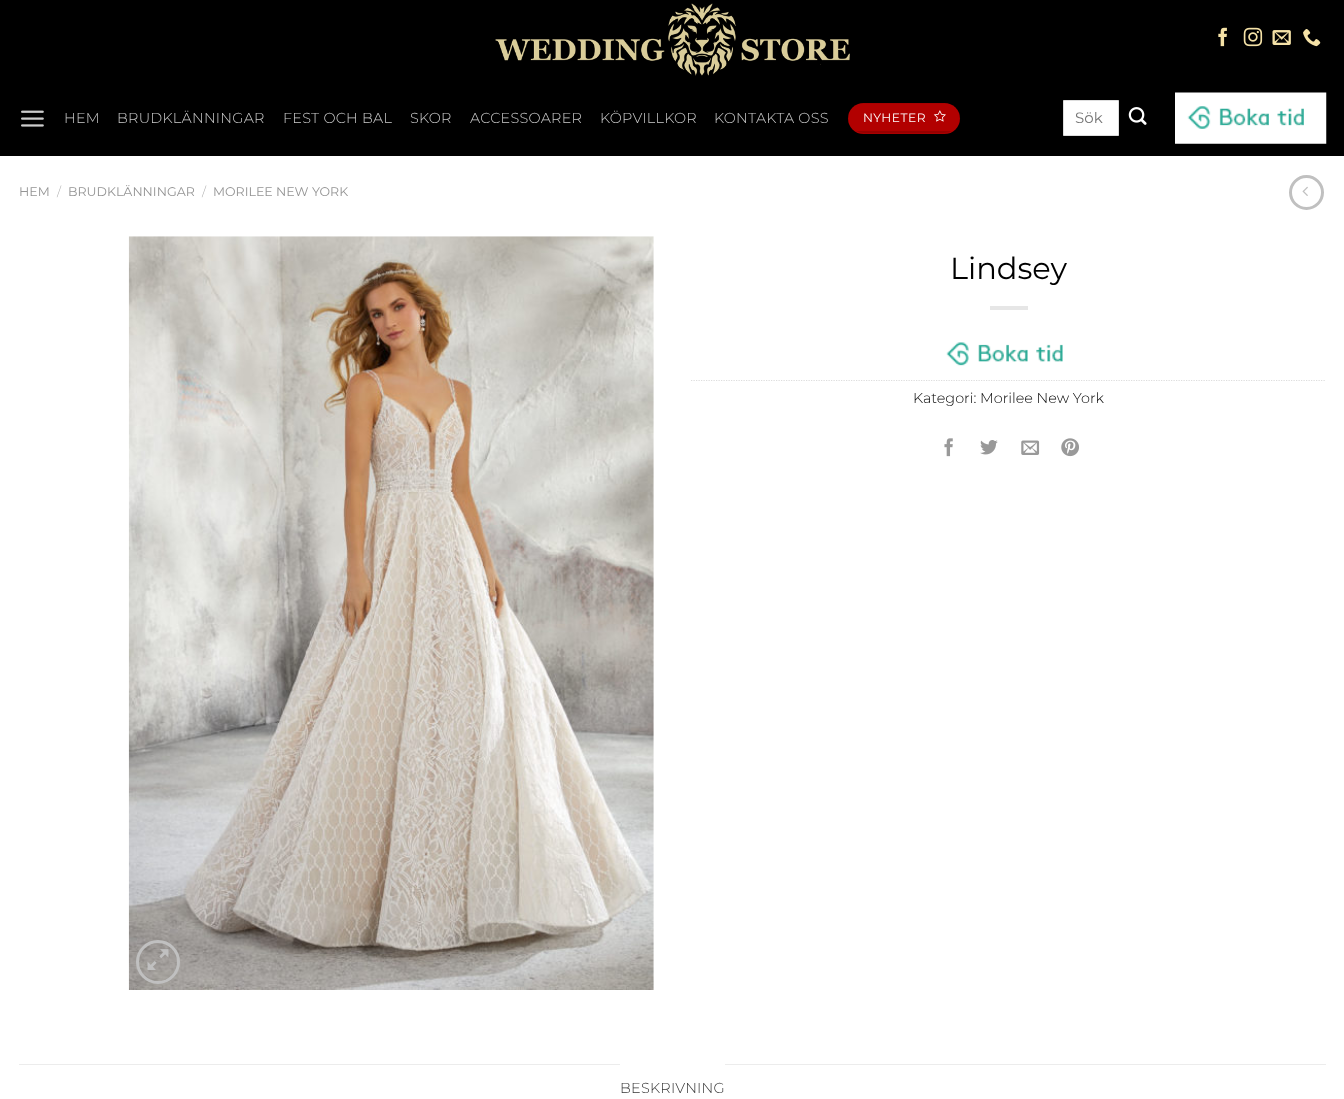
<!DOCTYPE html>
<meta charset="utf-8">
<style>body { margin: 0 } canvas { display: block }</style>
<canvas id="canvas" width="1344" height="1099"></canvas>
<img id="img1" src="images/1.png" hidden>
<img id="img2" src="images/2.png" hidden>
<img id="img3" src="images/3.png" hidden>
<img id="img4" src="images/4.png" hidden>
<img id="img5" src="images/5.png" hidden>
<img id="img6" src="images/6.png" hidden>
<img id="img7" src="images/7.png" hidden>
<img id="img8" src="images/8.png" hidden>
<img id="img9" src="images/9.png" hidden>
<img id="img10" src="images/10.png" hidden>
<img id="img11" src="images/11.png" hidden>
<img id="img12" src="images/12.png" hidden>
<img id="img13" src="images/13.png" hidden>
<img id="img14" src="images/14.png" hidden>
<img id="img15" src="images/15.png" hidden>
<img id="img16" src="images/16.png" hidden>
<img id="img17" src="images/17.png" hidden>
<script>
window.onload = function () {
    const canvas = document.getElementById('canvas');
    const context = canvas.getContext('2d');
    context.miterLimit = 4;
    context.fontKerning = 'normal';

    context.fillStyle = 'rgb(255, 255, 255)';
    context.fillRect(0, 0, 1344, 1099);
    context.fillStyle = 'rgb(0, 0, 0)';
    context.fillRect(0, 0, 1344, 156);
    context.drawImage(document.getElementById('img1'), 495, 3, 355, 73);
    context.drawImage(document.getElementById('img2'), 1218, 27, 9, 20);
    context.drawImage(document.getElementById('img3'), 1243, 27, 20, 20);
    context.drawImage(document.getElementById('img4'), 1272, 30, 19, 15);
    context.drawImage(document.getElementById('img5'), 1303, 29, 18, 18);
    context.drawImage(document.getElementById('img6'), 21, 110, 23, 17);
    context.fillStyle = 'rgb(178, 0, 0)';
    context.beginPath();
    context.roundRect(848, 103, 112, 31, 15.5);
    context.fill();
    context.strokeStyle = 'rgba(0, 0, 0, 0.05)';
    context.strokeRect(848.5, 103.5, 111, 30);
    context.drawImage(document.getElementById('img7'), 933, 110, 13, 12);
    context.fillStyle = 'rgba(0, 0, 0, 0.15)';
    context.beginPath();
    context.moveTo(952, 131);
    context.lineTo(856, 131);
    context.bezierCurveTo(858, 132, 861, 133, 864, 133);
    context.lineTo(944, 133);
    context.bezierCurveTo(947, 133, 950, 132, 952, 131);
    context.closePath();
    context.fill();
    context.fillStyle = 'rgb(255, 255, 255)';
    context.beginPath();
    context.rect(1063.5, 100.5, 55, 35);
    context.fill();
    context.strokeStyle = 'rgb(221, 221, 221)';
    context.stroke();
    context.drawImage(document.getElementById('img8'), 1128, 107, 19, 18);
    context.drawImage(document.getElementById('img9'), 1175, 92, 152, 52);
    context.beginPath();
    context.arc(1306.5, 192.5, 16, 0, 2 * Math.PI);
    context.strokeStyle = 'rgb(192, 192, 192)';
    context.lineWidth = 3;
    context.stroke();
    context.drawImage(document.getElementById('img10'), 1302, 186, 6, 10);
    context.drawImage(document.getElementById('img11'), 128, 236, 526, 754);
    context.beginPath();
    context.arc(158, 962, 20.5, 0, 2 * Math.PI);
    context.stroke();
    context.drawImage(document.getElementById('img12'), 147, 949, 22, 21);
    context.fillStyle = 'rgb(230, 230, 230)';
    context.fillRect(990, 306, 38, 4);
    context.drawImage(document.getElementById('img13'), 946, 342, 117, 24);
    context.beginPath();
    context.moveTo(691, 380.5);
    context.lineTo(1326, 380.5);
    context.strokeStyle = 'rgb(221, 221, 221)';
    context.lineWidth = 1.2;
    context.setLineDash([1.25, 1.25]);
    context.stroke();
    context.drawImage(document.getElementById('img14'), 944, 438, 9, 19);
    context.drawImage(document.getElementById('img15'), 980, 440, 18, 15);
    context.drawImage(document.getElementById('img16'), 1021, 440, 19, 15);
    context.drawImage(document.getElementById('img17'), 1061, 438, 18, 19);
    context.fillStyle = 'rgb(236, 236, 236)';
    context.fillRect(19, 1064, 1307, 1);
    context.fillStyle = 'rgb(255, 255, 255)';
    context.fillRect(620, 1064, 105, 1);
    context.letterSpacing = '0.25px';
    context.font = '300 14.4px Montserrat';
    context.fillStyle = 'rgb(204, 204, 204)';
    context.fillText('HEM', 64, 123);
    context.fillText('BRUDKLÄNNINGAR', 117, 123);
    context.fillText('FEST OCH BAL', 283, 123);
    context.fillText('SKOR', 410, 123);
    context.fillText('ACCESSOARER', 470, 123);
    context.fillText('KÖPVILLKOR', 600, 123);
    context.fillText('KONTAKTA OSS', 714, 123);
    context.letterSpacing = '0.5px';
    context.font = '12.25px Montserrat';
    context.fillStyle = 'rgb(255, 255, 255)';
    context.fillText('NYHETER', 863, 122);
    context.letterSpacing = '0px';
    context.font = '15px Montserrat';
    context.fillStyle = 'rgb(117, 117, 117)';
    context.fillText('Sök', 1075, 123);
    context.font = '12.6px Montserrat';
    context.fillStyle = 'rgb(148, 148, 148)';
    context.fillText('HEM', 19, 196);
    context.font = '300 12.6px Montserrat';
    context.fillStyle = 'rgb(178, 178, 178)';
    context.fillText('/', 57, 196);
    context.font = '12.6px Montserrat';
    context.fillStyle = 'rgb(148, 148, 148)';
    context.fillText('BRUDKLÄNNINGAR', 68, 196);
    context.font = '300 12.6px Montserrat';
    context.fillStyle = 'rgb(178, 178, 178)';
    context.fillText('/', 202, 196);
    context.font = '12.6px Montserrat';
    context.fillStyle = 'rgb(148, 148, 148)';
    context.fillText('MORILEE NEW YORK', 213, 196);
    context.font = '30.5px Montserrat';
    context.fillStyle = 'rgb(0, 0, 0)';
    context.fillText('Lindsey', 950, 279);
    context.font = '300 14.4px Montserrat';
    context.fillText('Kategori: Morilee New York', 913, 403);
    context.letterSpacing = '0.25px';
    context.fillStyle = 'rgb(54, 54, 54)';
    context.fillText('BESKRIVNING', 620, 1093);
};
</script>
